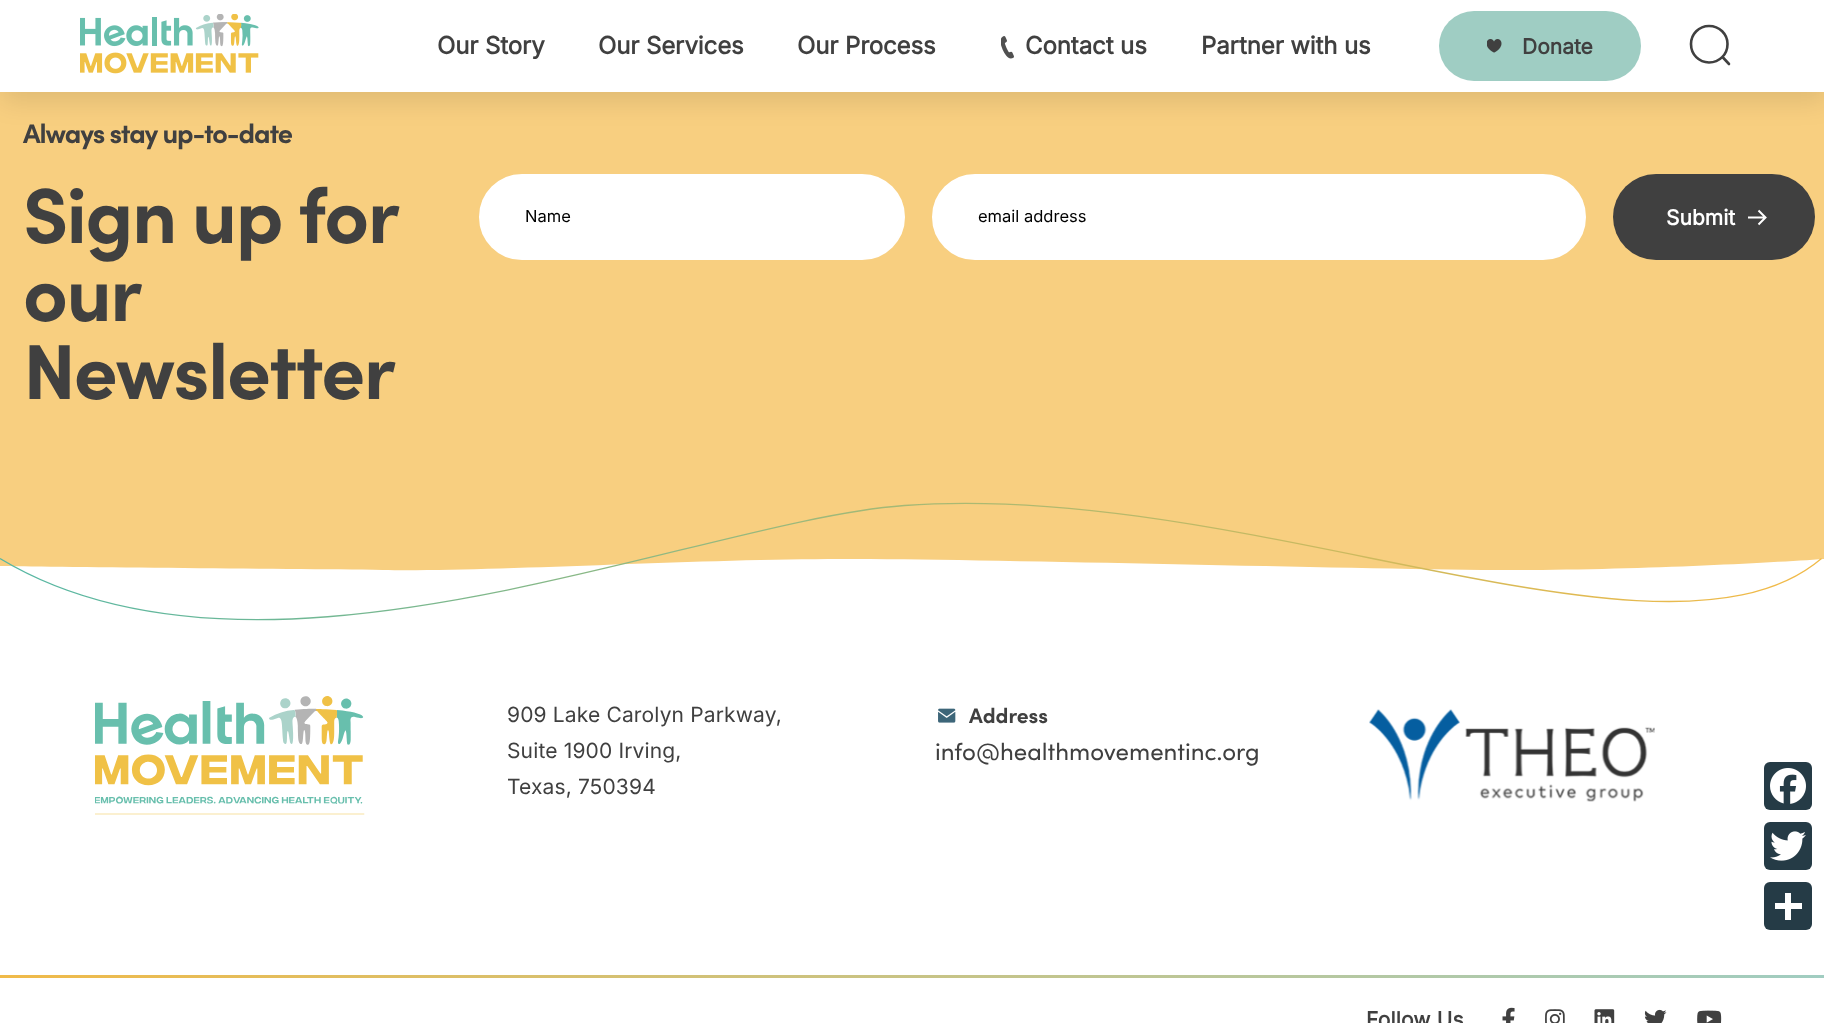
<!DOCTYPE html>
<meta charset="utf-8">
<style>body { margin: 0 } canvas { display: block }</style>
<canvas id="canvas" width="1824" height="1023"></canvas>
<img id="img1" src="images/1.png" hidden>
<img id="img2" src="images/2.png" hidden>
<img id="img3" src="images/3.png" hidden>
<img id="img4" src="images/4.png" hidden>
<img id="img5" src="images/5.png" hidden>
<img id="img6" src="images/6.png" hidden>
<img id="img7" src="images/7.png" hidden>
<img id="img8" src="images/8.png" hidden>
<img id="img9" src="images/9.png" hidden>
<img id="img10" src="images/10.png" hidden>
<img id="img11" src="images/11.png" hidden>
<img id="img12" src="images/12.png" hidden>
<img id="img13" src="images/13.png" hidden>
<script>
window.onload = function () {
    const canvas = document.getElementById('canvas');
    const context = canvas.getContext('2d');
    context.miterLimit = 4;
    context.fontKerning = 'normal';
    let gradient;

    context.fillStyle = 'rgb(255, 255, 255)';
    context.fillRect(0, 0, 1824, 1023);
    context.fillStyle = 'rgb(248, 207, 128)';
    context.fillRect(0, 92, 1824, 385);
    context.fillStyle = 'rgba(0, 0, 0, 0.1)';
    context.filter = 'blur(13px)';
    context.beginPath();
    context.rect(2, 9, 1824, 92);
    context.fill();
    context.filter = 'none';
    context.fillStyle = 'rgb(255, 255, 255)';
    context.fillRect(0, 0, 1824, 92);
    context.drawImage(document.getElementById('img1'), 80, 14, 179, 60);
    context.drawImage(document.getElementById('img2'), 1001, 36, 13, 23);
    context.fillStyle = 'rgb(159, 205, 195)';
    context.beginPath();
    context.roundRect(1439, 11, 202, 70, 35);
    context.fill();
    context.drawImage(document.getElementById('img3'), 1487, 39, 15, 14);
    context.beginPath();
    context.moveTo(1722.5, 57);
    context.lineTo(1729, 64);
    context.moveTo(1727.5, 44);
    context.bezierCurveTo(1727.5, 54.5, 1719.5, 62.5, 1709, 62.5);
    context.bezierCurveTo(1699, 62.5, 1691, 54.5, 1691, 44);
    context.bezierCurveTo(1691, 34, 1699, 26, 1709, 26);
    context.bezierCurveTo(1719.5, 26, 1727.5, 34, 1727.5, 44);
    context.closePath();
    context.strokeStyle = 'rgb(64, 64, 64)';
    context.lineWidth = 2.6;
    context.lineCap = 'round';
    context.lineJoin = 'round';
    context.stroke();
    context.fillStyle = 'rgb(255, 255, 255)';
    context.beginPath();
    context.roundRect(480, 175, 424, 84, 42);
    context.fill();
    context.strokeStyle = 'rgb(255, 255, 255)';
    context.lineWidth = 2;
    context.lineJoin = 'miter';
    context.stroke();
    context.beginPath();
    context.roundRect(933, 175, 652, 84, 42);
    context.fill();
    context.stroke();
    context.fillStyle = 'rgb(64, 64, 64)';
    context.beginPath();
    context.roundRect(1613, 174, 202, 86, 43);
    context.fill();
    context.save();
    context.beginPath();
    context.rect(1748, 203, 19, 30);
    context.clip();
    context.beginPath();
    context.moveTo(1747.5, 217.5);
    context.lineTo(1764, 217.5);
    context.moveTo(1758.5, 210.5);
    context.lineTo(1765.5, 217.5);
    context.lineTo(1758.5, 224.5);
    context.lineCap = 'butt';
    context.stroke();
    context.restore();
    context.fillStyle = 'rgb(248, 207, 128)';
    context.beginPath();
    context.moveTo(1482, 570);
    context.bezierCurveTo(1618, 571, 1767, 563, 1824, 559);
    context.lineTo(1824, 477);
    context.lineTo(-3, 477);
    context.lineTo(-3, 566);
    context.bezierCurveTo(20, 567, 283, 569, 383, 570);
    context.bezierCurveTo(484, 572, 696, 559, 841, 559);
    context.bezierCurveTo(986, 559, 1313, 568, 1482, 570);
    context.closePath();
    context.fill();
    context.beginPath();
    context.moveTo(0, 558.5);
    context.bezierCurveTo(261.5, 716.5, 696.5, 520.5, 904.5, 505.5);
    context.bezierCurveTo(1251, 480, 1669, 688.5, 1821.5, 558.5);
    gradient = context.createLinearGradient(0, 599, 1768, 579);
    gradient.addColorStop(0, 'rgb(86, 183, 164)');
    gradient.addColorStop(1, 'rgb(240, 186, 73)');
    context.strokeStyle = gradient;
    context.lineWidth = 1.3;
    context.lineCap = 'butt';
    context.stroke();
    context.drawImage(document.getElementById('img4'), 95, 696, 270, 119);
    context.drawImage(document.getElementById('img5'), 938, 708, 18, 15);
    context.drawImage(document.getElementById('img6'), 1369, 709, 286, 93);
    gradient = context.createLinearGradient(0, 977, 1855, 977);
    gradient.addColorStop(0, 'rgb(240, 186, 73)');
    gradient.addColorStop(1, 'rgb(159, 205, 195)');
    context.fillStyle = gradient;
    context.fillRect(0, 975, 1824, 3);
    context.drawImage(document.getElementById('img7'), 1502, 1007, 13, 16);
    context.drawImage(document.getElementById('img8'), 1545, 1009, 20, 14);
    context.drawImage(document.getElementById('img9'), 1594, 1009, 21, 14);
    context.drawImage(document.getElementById('img10'), 1644, 1009, 23, 14);
    context.drawImage(document.getElementById('img11'), 1697, 1010, 25, 13);
    context.fillStyle = 'rgb(37, 59, 70)';
    context.beginPath();
    context.roundRect(1764, 762, 48, 48, 6);
    context.fill();
    context.drawImage(document.getElementById('img12'), 1770, 768, 36, 36);
    context.beginPath();
    context.roundRect(1764, 822, 48, 48, 6);
    context.fill();
    context.drawImage(document.getElementById('img13'), 1770, 831, 36, 30);
    context.beginPath();
    context.roundRect(1764, 882, 48, 48, 6);
    context.fill();
    context.fillStyle = 'rgb(255, 255, 255)';
    context.fillRect(1785, 893, 6, 27);
    context.fillRect(1775, 903, 27, 6);
    context.letterSpacing = '-0.1px';
    context.font = 'bold 24px Inter';
    context.fillStyle = 'rgb(64, 64, 64)';
    context.fillText('Our Story', 437, 54);
    context.fillText('Our Services', 598, 54);
    context.fillText('Our Process', 797, 54);
    context.fillText('Contact us', 1025, 54);
    context.fillText('Partner with us', 1201, 54);
    context.letterSpacing = '0px';
    context.font = 'bold 21px Inter';
    context.fillText('Donate', 1522, 54);
    context.letterSpacing = '-1.1px';
    context.font = 'bold 27px Sofia';
    context.fillText('Always stay up-to-date', 23, 143);
    context.letterSpacing = '-1.5px';
    context.wordSpacing = '-1px';
    context.font = 'bold 78px Sofia';
    context.fillText('Sign up for', 23, 243);
    context.wordSpacing = '0px';
    context.fillText('our', 23, 321);
    context.fillText('Newsletter', 23, 399);
    context.letterSpacing = '0px';
    context.font = '16.5px Inter';
    context.fillStyle = 'rgb(0, 0, 0)';
    context.fillText('Name', 525, 222);
    context.fillText('email address', 978, 222);
    context.font = 'bold 21px Inter';
    context.fillStyle = 'rgb(255, 255, 255)';
    context.fillText('Submit', 1666, 225);
    context.letterSpacing = '0.15px';
    context.font = '21px Inter';
    context.fillStyle = 'rgb(64, 64, 64)';
    context.fillText('909 Lake Carolyn Parkway,', 507, 722);
    context.fillText('Suite 1900 Irving,', 507, 758);
    context.fillText('Texas, 750394', 507, 794);
    context.letterSpacing = '0px';
    context.font = 'bold 21px Sofia';
    context.fillText('Address', 969, 723);
    context.font = '24px Sofia';
    context.fillText('info@healthmovementinc.org', 935, 760);
    context.letterSpacing = '0.15px';
    context.font = 'bold 21px Inter';
    context.fillText('Follow Us', 1366, 1027);
};
</script>
